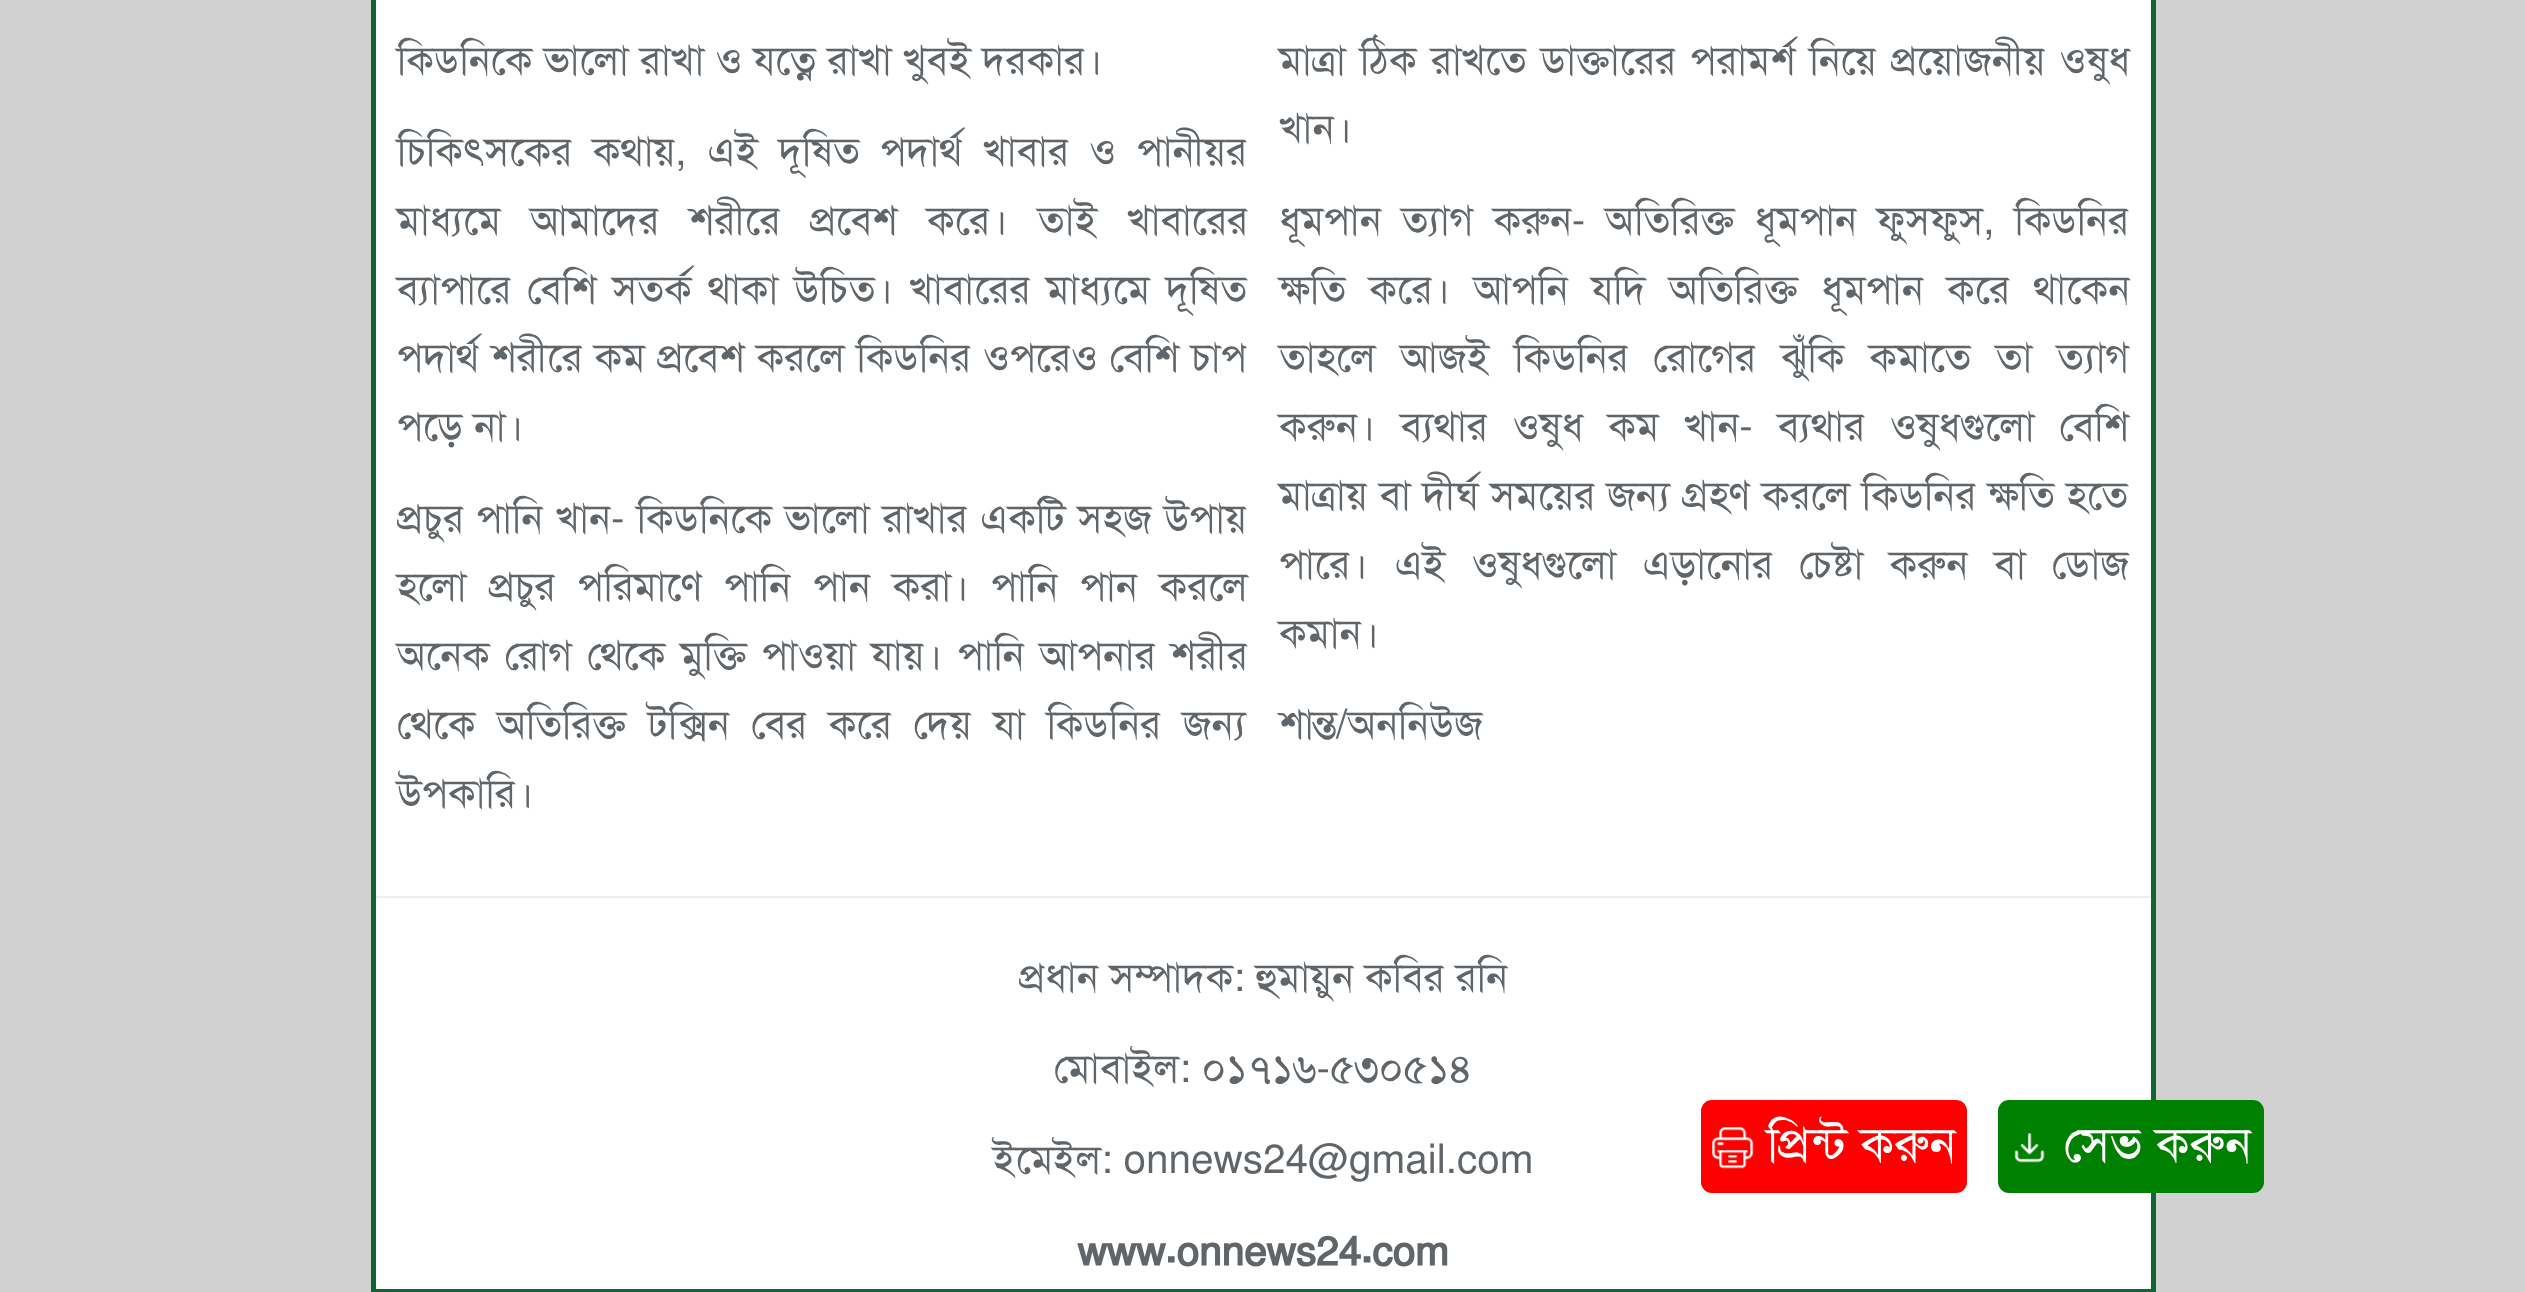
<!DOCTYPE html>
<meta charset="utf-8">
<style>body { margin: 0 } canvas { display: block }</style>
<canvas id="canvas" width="2525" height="1292"></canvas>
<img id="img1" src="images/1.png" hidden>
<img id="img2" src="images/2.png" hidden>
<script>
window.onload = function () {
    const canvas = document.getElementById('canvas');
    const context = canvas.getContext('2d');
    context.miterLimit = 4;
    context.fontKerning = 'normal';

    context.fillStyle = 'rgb(209, 209, 209)';
    context.fillRect(0, 0, 2525, 1292);
    context.fillStyle = 'rgb(255, 255, 255)';
    context.beginPath();
    context.rect(373.5, -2.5, 1780, 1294);
    context.fill();
    context.strokeStyle = 'rgb(16, 102, 52)';
    context.lineWidth = 5;
    context.stroke();
    context.fillStyle = 'rgb(238, 238, 238)';
    context.fillRect(376, 896, 1775, 2);
    context.fillStyle = 'rgb(255, 0, 0)';
    context.beginPath();
    context.roundRect(1701, 1100, 266, 93, 11);
    context.fill();
    context.drawImage(document.getElementById('img1'), 1712, 1127, 42, 42);
    context.fillStyle = 'rgb(0, 128, 0)';
    context.beginPath();
    context.roundRect(1998, 1100, 266, 93, 11);
    context.fill();
    context.drawImage(document.getElementById('img2'), 2014, 1132, 31, 31);
    context.font = '40.5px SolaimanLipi';
    context.fillStyle = 'rgb(95, 101, 105)';
    context.fillText('কিডনিকে ভালো রাখা ও যত্নে রাখা খুবই দরকার।', 397, 74);
    context.wordSpacing = '3px';
    context.fillText('মাত্রা ঠিক রাখতে ডাক্তারের পরামর্শ নিয়ে প্রয়োজনীয় ওষুধ', 1279, 74);
    context.wordSpacing = '0px';
    context.fillText('খান।', 1279, 142);
    context.wordSpacing = '9.25px';
    context.fillText('চিকিৎসকের কথায়, এই দূষিত পদার্থ খাবার ও পানীয়র', 397, 165);
    context.wordSpacing = '18.5px';
    context.fillText('মাধ্যমে আমাদের শরীরে প্রবেশ করে। তাই খাবারের', 397, 234);
    context.wordSpacing = '4.75px';
    context.fillText('ব্যাপারে বেশি সতর্ক থাকা উচিত। খাবারের মাধ্যমে দূষিত', 397, 303);
    context.wordSpacing = '0.75px';
    context.fillText('পদার্থ শরীরে কম প্রবেশ করলে কিডনির ওপরেও বেশি চাপ', 397, 371);
    context.wordSpacing = '0px';
    context.fillText('পড়ে না।', 397, 440);
    context.wordSpacing = '8.75px';
    context.fillText('ধূমপান ত্যাগ করুন- অতিরিক্ত ধূমপান ফুসফুস, কিডনির', 1279, 234);
    context.wordSpacing = '12px';
    context.fillText('ক্ষতি করে। আপনি যদি অতিরিক্ত ধূমপান করে থাকেন', 1279, 303);
    context.wordSpacing = '13.5px';
    context.fillText('তাহলে আজই কিডনির রোগের ঝুঁকি কমাতে তা ত্যাগ', 1279, 371);
    context.wordSpacing = '13.75px';
    context.fillText('করুন। ব্যথার ওষুধ কম খান- ব্যথার ওষুধগুলো বেশি', 1279, 440);
    context.wordSpacing = '0.5px';
    context.fillText('মাত্রায় বা দীর্ঘ সময়ের জন্য গ্রহণ করলে কিডনির ক্ষতি হতে', 1279, 509);
    context.wordSpacing = '15px';
    context.fillText('পারে। এই ওষুধগুলো এড়ানোর চেষ্টা করুন বা ডোজ', 1279, 578);
    context.wordSpacing = '0px';
    context.fillText('কমান।', 1279, 647);
    context.wordSpacing = '1.25px';
    context.fillText('প্রচুর পানি খান- কিডনিকে ভালো রাখার একটি সহজ উপায়', 397, 532);
    context.wordSpacing = '10.75px';
    context.fillText('হলো প্রচুর পরিমাণে পানি পান করা। পানি পান করলে', 397, 600);
    context.wordSpacing = '3.75px';
    context.fillText('অনেক রোগ থেকে মুক্তি পাওয়া যায়। পানি আপনার শরীর', 397, 669);
    context.wordSpacing = '10.5px';
    context.fillText('থেকে অতিরিক্ত টক্সিন বের করে দেয় যা কিডনির জন্য', 397, 738);
    context.wordSpacing = '0px';
    context.fillText('উপকারি।', 397, 807);
    context.fillText('শান্ত/অননিউজ', 1279, 738);
    context.fillText('প্রধান সম্পাদক: হুমায়ুন কবির রনি', 1019, 991);
    context.fillText('মোবাইল: ০১৭১৬-৫৩০৫১৪', 1054, 1082);
    context.fillText('ইমেইল: onnews24@gmail.com', 993, 1173);
    context.font = 'bold 40.5px SolaimanLipi';
    context.fillText('www.onnews24.com', 1078, 1265);
    context.font = '49.5px SolaimanLipi';
    context.fillStyle = 'rgb(255, 255, 255)';
    context.fillText('প্রিন্ট করুন', 1767, 1161);
    context.fillText('সেভ করুন', 2064, 1161);
};
</script>
